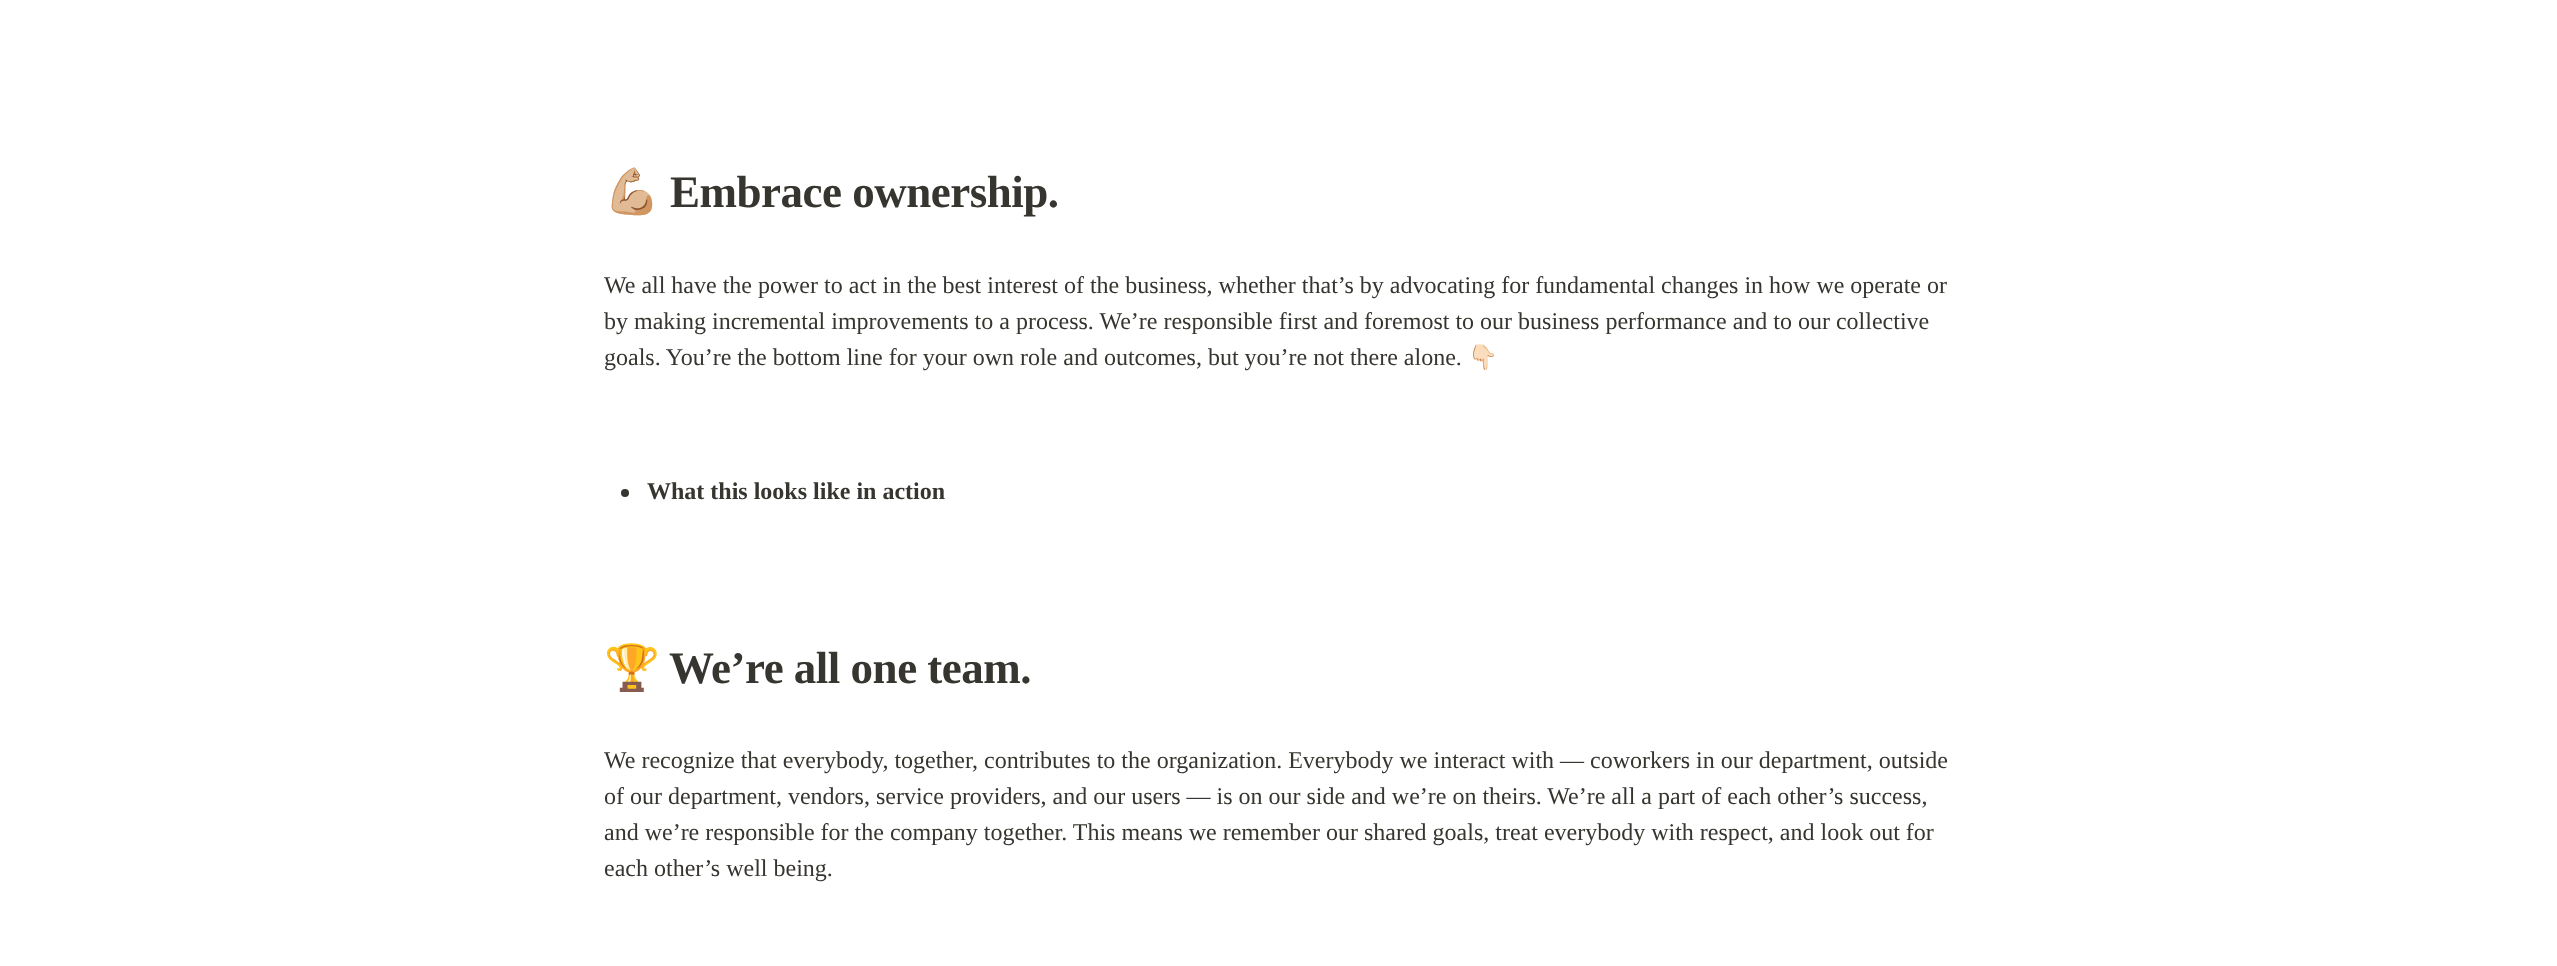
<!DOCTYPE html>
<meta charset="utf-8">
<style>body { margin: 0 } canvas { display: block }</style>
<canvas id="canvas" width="2557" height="966"></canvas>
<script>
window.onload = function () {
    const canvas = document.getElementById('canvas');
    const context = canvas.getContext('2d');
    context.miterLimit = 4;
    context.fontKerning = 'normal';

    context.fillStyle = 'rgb(255, 255, 255)';
    context.fillRect(0, 0, 2557, 966);
    context.fillStyle = 'rgb(55, 53, 47)';
    context.beginPath();
    context.arc(625, 493, 4, 0, 2 * Math.PI);
    context.fill();
    context.letterSpacing = '-0.5px';
    context.font = 'bold 45px Noto Color Emoji';
    context.fillText('💪🏼', 604, 207);
    context.font = 'bold 45px Liberation Serif';
    context.fillText('Embrace ownership.', 670, 207);
    context.letterSpacing = '0px';
    context.font = '24px Liberation Serif';
    context.fillText('We all have the power to act in the best interest of the business, whether that’s by advocating for fundamental changes in how we operate or', 604, 293);
    context.fillText('by making incremental improvements to a process. We’re responsible first and foremost to our business performance and to our collective', 604, 329);
    context.fillText('goals. You’re the bottom line for your own role and outcomes, but you’re not there alone.', 604, 365);
    context.font = '24px Noto Color Emoji';
    context.fillText('👇🏻', 1468, 365);
    context.font = 'bold 24px Liberation Serif';
    context.fillText('What this looks like in action', 647, 499);
    context.letterSpacing = '-0.5px';
    context.font = 'bold 45px Noto Color Emoji';
    context.fillText('🏆', 604, 683);
    context.font = 'bold 45px Liberation Serif';
    context.fillText('We’re all one team.', 669, 683);
    context.letterSpacing = '0px';
    context.font = '24px Liberation Serif';
    context.fillText('We recognize that everybody, together, contributes to the organization. Everybody we interact with — coworkers in our department, outside', 604, 768);
    context.fillText('of our department, vendors, service providers, and our users — is on our side and we’re on theirs. We’re all a part of each other’s success,', 604, 804);
    context.fillText('and we’re responsible for the company together. This means we remember our shared goals, treat everybody with respect, and look out for', 604, 840);
    context.fillText('each other’s well being.', 604, 876);
};
</script>
